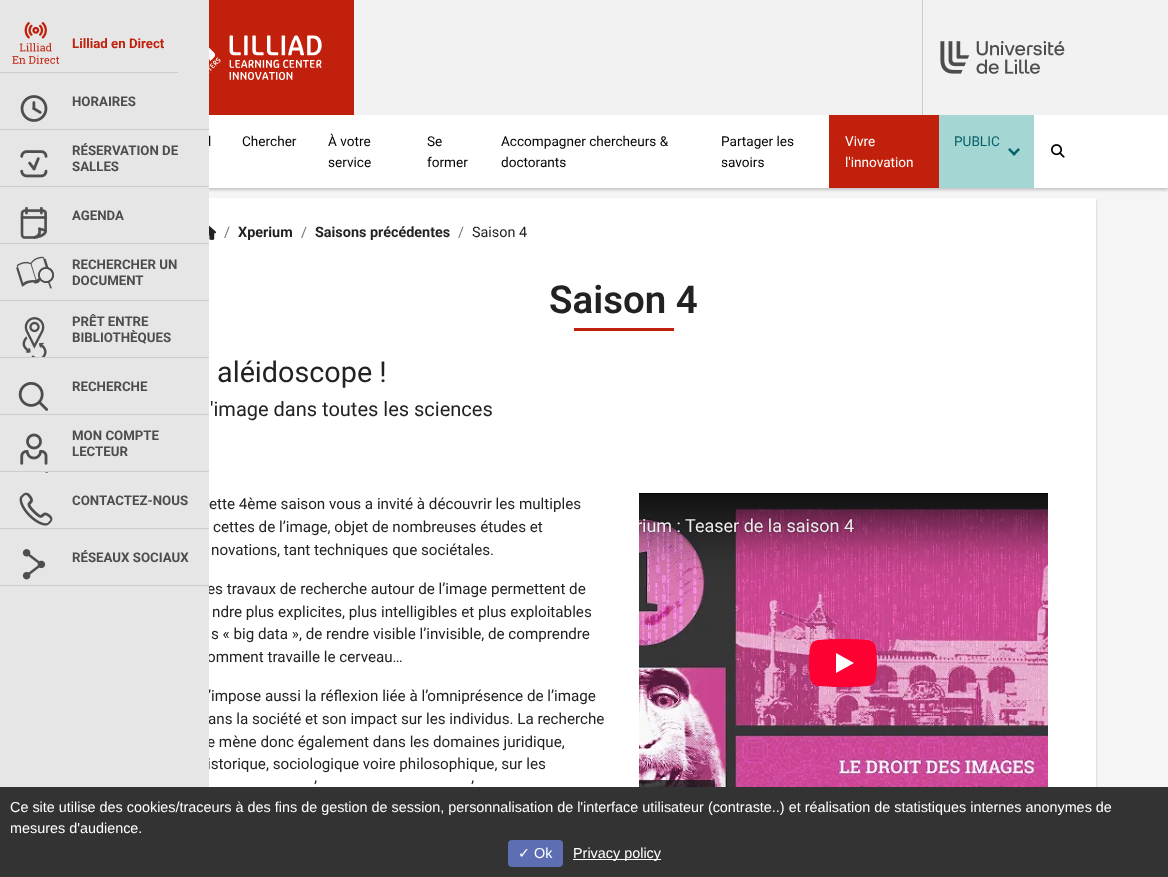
<!DOCTYPE html>
<meta charset="utf-8">
<style>body { margin: 0 } canvas { display: block }</style>
<canvas id="canvas" width="1168" height="877"></canvas>
<img id="img1" src="images/11.png" hidden>
<img id="img2" src="images/12.png" hidden>
<img id="img3" src="images/13.png" hidden>
<img id="img4" src="images/14.png" hidden>
<img id="img5" src="images/15.png" hidden>
<img id="img6" src="images/16.png" hidden>
<img id="img7" src="images/10.png" hidden>
<img id="img8" src="images/9.png" hidden>
<img id="img9" src="images/8.png" hidden>
<img id="img10" src="images/7.png" hidden>
<img id="img11" src="images/6.png" hidden>
<img id="img12" src="images/5.png" hidden>
<img id="img13" src="images/4.png" hidden>
<img id="img14" src="images/3.png" hidden>
<img id="img15" src="images/2.png" hidden>
<img id="img16" src="images/1.png" hidden>
<script>
window.onload = function () {
    const canvas = document.getElementById('canvas');
    const context = canvas.getContext('2d');
    context.miterLimit = 4;
    context.fontKerning = 'normal';

    context.fillStyle = 'rgb(242, 242, 242)';
    context.fillRect(0, 0, 1168, 877);
    context.fillStyle = 'rgb(193, 33, 12)';
    context.fillRect(209, 0, 145, 115);
    context.drawImage(document.getElementById('img1'), 209, 35, 113, 45);
    context.fillStyle = 'rgb(204, 204, 204)';
    context.fillRect(922, 0, 1, 115);
    context.drawImage(document.getElementById('img2'), 940, 41, 125, 33);
    context.fillStyle = 'rgb(245, 245, 245)';
    context.fillRect(209, 188, 959, 599);
    context.fillStyle = 'rgba(0, 0, 0, 0.2)';
    context.filter = 'blur(1.5px)';
    context.beginPath();
    context.rect(64, 117, 1104, 73);
    context.fill();
    context.filter = 'none';
    context.fillStyle = 'rgb(255, 255, 255)';
    context.fillRect(209, 115, 959, 73);
    context.fillStyle = 'rgb(193, 33, 12)';
    context.fillRect(829, 115, 110, 73);
    context.fillStyle = 'rgb(164, 214, 212)';
    context.fillRect(939, 115, 95, 73);
    context.drawImage(document.getElementById('img3'), 1008, 148, 12, 8);
    context.drawImage(document.getElementById('img4'), 1051, 144, 14, 14);
    context.fillStyle = 'rgba(0, 0, 0, 0.2)';
    context.filter = 'blur(1.5px)';
    context.beginPath();
    context.rect(151, 200, 945, 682);
    context.fill();
    context.filter = 'none';
    context.fillStyle = 'rgb(255, 255, 255)';
    context.fillRect(209, 198, 887, 589);
    context.drawImage(document.getElementById('img5'), 209, 225, 8, 15);
    context.fillStyle = 'rgb(193, 33, 12)';
    context.fillRect(574, 328, 100, 3);
    context.drawImage(document.getElementById('img6'), 639, 493, 409, 294);
    context.fillStyle = 'rgb(51, 51, 51)';
    context.fillRect(0, 787, 1168, 90);
    context.fillStyle = 'rgb(93, 110, 179)';
    context.beginPath();
    context.roundRect(508, 840, 55, 27, 4);
    context.fill();
    context.fillStyle = 'rgb(255, 255, 255)';
    context.fillRect(573, 859, 88, 1);
    context.font = '13.6px Roboto';
    context.fillStyle = 'rgb(0, 0, 0)';
    context.fillText('l', 208, 146);
    context.fillText('Chercher', 242, 146);
    context.fillText('À votre', 328, 146);
    context.fillText('service', 328, 167);
    context.fillText('Se', 427, 146);
    context.fillText('former', 427, 167);
    context.fillText('Accompagner chercheurs &', 501, 146);
    context.fillText('doctorants', 501, 167);
    context.fillText('Partager les', 721, 146);
    context.fillText('savoirs', 721, 167);
    context.fillStyle = 'rgb(255, 255, 255)';
    context.fillText('Vivre', 845, 146);
    context.fillText('l\'innovation', 845, 167);
    context.fillStyle = 'rgb(6, 97, 105)';
    context.fillText('PUBLIC', 954, 146);
    context.font = '14.4px Roboto';
    context.fillStyle = 'rgb(108, 117, 125)';
    context.fillText('/', 224, 237);
    context.font = 'bold 14.4px Roboto';
    context.fillStyle = 'rgb(34, 34, 34)';
    context.fillText('Xperium', 238, 237);
    context.font = '14.4px Roboto';
    context.fillStyle = 'rgb(108, 117, 125)';
    context.fillText('/', 301, 237);
    context.font = 'bold 14.4px Roboto';
    context.fillStyle = 'rgb(34, 34, 34)';
    context.fillText('Saisons précédentes', 315, 237);
    context.font = '14.4px Roboto';
    context.fillStyle = 'rgb(108, 117, 125)';
    context.fillText('/', 458, 237);
    context.fillStyle = 'rgb(34, 34, 34)';
    context.fillText('Saison 4', 472, 237);
    context.font = '600 38.5px Roboto';
    context.fillText('Saison 4', 549, 313);
    context.font = '28.75px Roboto';
    context.fillText('aléidoscope !', 217, 382);
    context.font = '20px Roboto';
    context.fillText('\'image dans toutes les sciences', 210, 416);
    context.font = '15.2px Roboto';
    context.fillText('ette 4ème saison vous a invité à découvrir les multiples', 209, 509);
    context.fillText('cettes de l’image, objet de nombreuses études et', 213, 532);
    context.fillText('novations, tant techniques que sociétales.', 211, 555);
    context.fillText('es travaux de recherche autour de l’image permettent de', 207, 594);
    context.fillText('ndre plus explicites, plus intelligibles et plus exploitables', 212, 617);
    context.fillText('s « big data », de rendre visible l’invisible, de comprendre', 211, 639);
    context.fillText('omment travaille le cerveau…', 207, 662);
    context.fillText('’impose aussi la réflexion liée à l’omniprésence de l’image', 208, 701);
    context.fillText('ans la société et son impact sur les individus. La recherche', 208, 724);
    context.fillText('e mène donc également dans les domaines juridique,', 207, 747);
    context.fillText('istorique, sociologique voire philosophique, sur les', 207, 769);
    context.fillStyle = 'rgb(230, 230, 230)';
    context.fillRect(0, 0, 209, 787);
    context.font = 'bold 13.25px Roboto';
    context.fillStyle = 'rgb(77, 77, 77)';
    context.fillText('RÉSEAUX SOCIAUX', 72, 562);
    context.drawImage(document.getElementById('img7'), 22, 549, 24, 31);
    context.fillStyle = 'rgb(204, 204, 204)';
    context.fillRect(0, 585, 209, 1);
    context.fillStyle = 'rgb(77, 77, 77)';
    context.fillText('CONTACTEZ-NOUS', 72, 505);
    context.drawImage(document.getElementById('img8'), 19, 472, 34, 54);
    context.fillStyle = 'rgb(204, 204, 204)';
    context.fillRect(0, 528, 209, 1);
    context.fillStyle = 'rgb(77, 77, 77)';
    context.fillText('LECTEUR', 72, 456);
    context.fillText('MON COMPTE', 72, 440);
    context.drawImage(document.getElementById('img9'), 20, 433, 28, 32);
    context.fillStyle = 'rgb(204, 204, 204)';
    context.fillRect(0, 471, 209, 1);
    context.fillStyle = 'rgb(77, 77, 77)';
    context.fillText('RECHERCHE', 72, 391);
    context.drawImage(document.getElementById('img10'), 18, 382, 31, 29);
    context.fillStyle = 'rgb(204, 204, 204)';
    context.fillRect(0, 414, 209, 1);
    context.fillStyle = 'rgb(77, 77, 77)';
    context.fillText('BIBLIOTHÈQUES', 72, 342);
    context.fillText('PRÊT ENTRE', 72, 326);
    context.drawImage(document.getElementById('img11'), 22, 317, 25, 40);
    context.fillStyle = 'rgb(204, 204, 204)';
    context.fillRect(0, 357, 209, 1);
    context.fillStyle = 'rgb(77, 77, 77)';
    context.fillText('DOCUMENT', 72, 285);
    context.fillText('RECHERCHER UN', 72, 269);
    context.drawImage(document.getElementById('img12'), 16, 256, 38, 33);
    context.fillStyle = 'rgb(204, 204, 204)';
    context.fillRect(0, 300, 209, 1);
    context.fillStyle = 'rgb(77, 77, 77)';
    context.fillText('AGENDA', 72, 220);
    context.drawImage(document.getElementById('img13'), 20, 206, 27, 33);
    context.fillStyle = 'rgb(204, 204, 204)';
    context.fillRect(0, 243, 209, 1);
    context.fillStyle = 'rgb(77, 77, 77)';
    context.fillText('SALLES', 72, 171);
    context.fillText('RÉSERVATION DE', 72, 155);
    context.drawImage(document.getElementById('img14'), 20, 150, 28, 28);
    context.fillStyle = 'rgb(204, 204, 204)';
    context.fillRect(0, 186, 209, 1);
    context.fillStyle = 'rgb(77, 77, 77)';
    context.fillText('HORAIRES', 72, 106);
    context.drawImage(document.getElementById('img15'), 20, 95, 28, 27);
    context.fillStyle = 'rgb(204, 204, 204)';
    context.fillRect(0, 129, 209, 1);
    context.fillStyle = 'rgb(193, 33, 12)';
    context.fillText('Lilliad en Direct', 72, 48);
    context.fillStyle = 'rgb(204, 204, 204)';
    context.fillRect(0, 72, 178, 1);
    context.drawImage(document.getElementById('img16'), 12, 22, 48, 42);
    context.font = '15.2px Roboto';
    context.fillStyle = 'rgb(34, 34, 34)';
    context.fillText('’', 314, 792);
    context.fillText('’', 471, 792);
    context.font = '14.4px Liberation Sans';
    context.fillStyle = 'rgb(255, 255, 255)';
    context.fillText('Ce site utilise des cookies/traceurs à des fins de gestion de session, personnalisation de l\'interface utilisateur (contraste..) et réalisation de statistiques internes anonymes de', 10, 812);
    context.fillText('mesures d\'audience.', 10, 833);
    context.font = '14.4px DejaVu Sans';
    context.fillText('✓', 518, 858);
    context.font = '14.4px Liberation Sans';
    context.fillText('Ok', 534, 858);
    context.fillText('Privacy policy', 573, 858);
};
</script>
